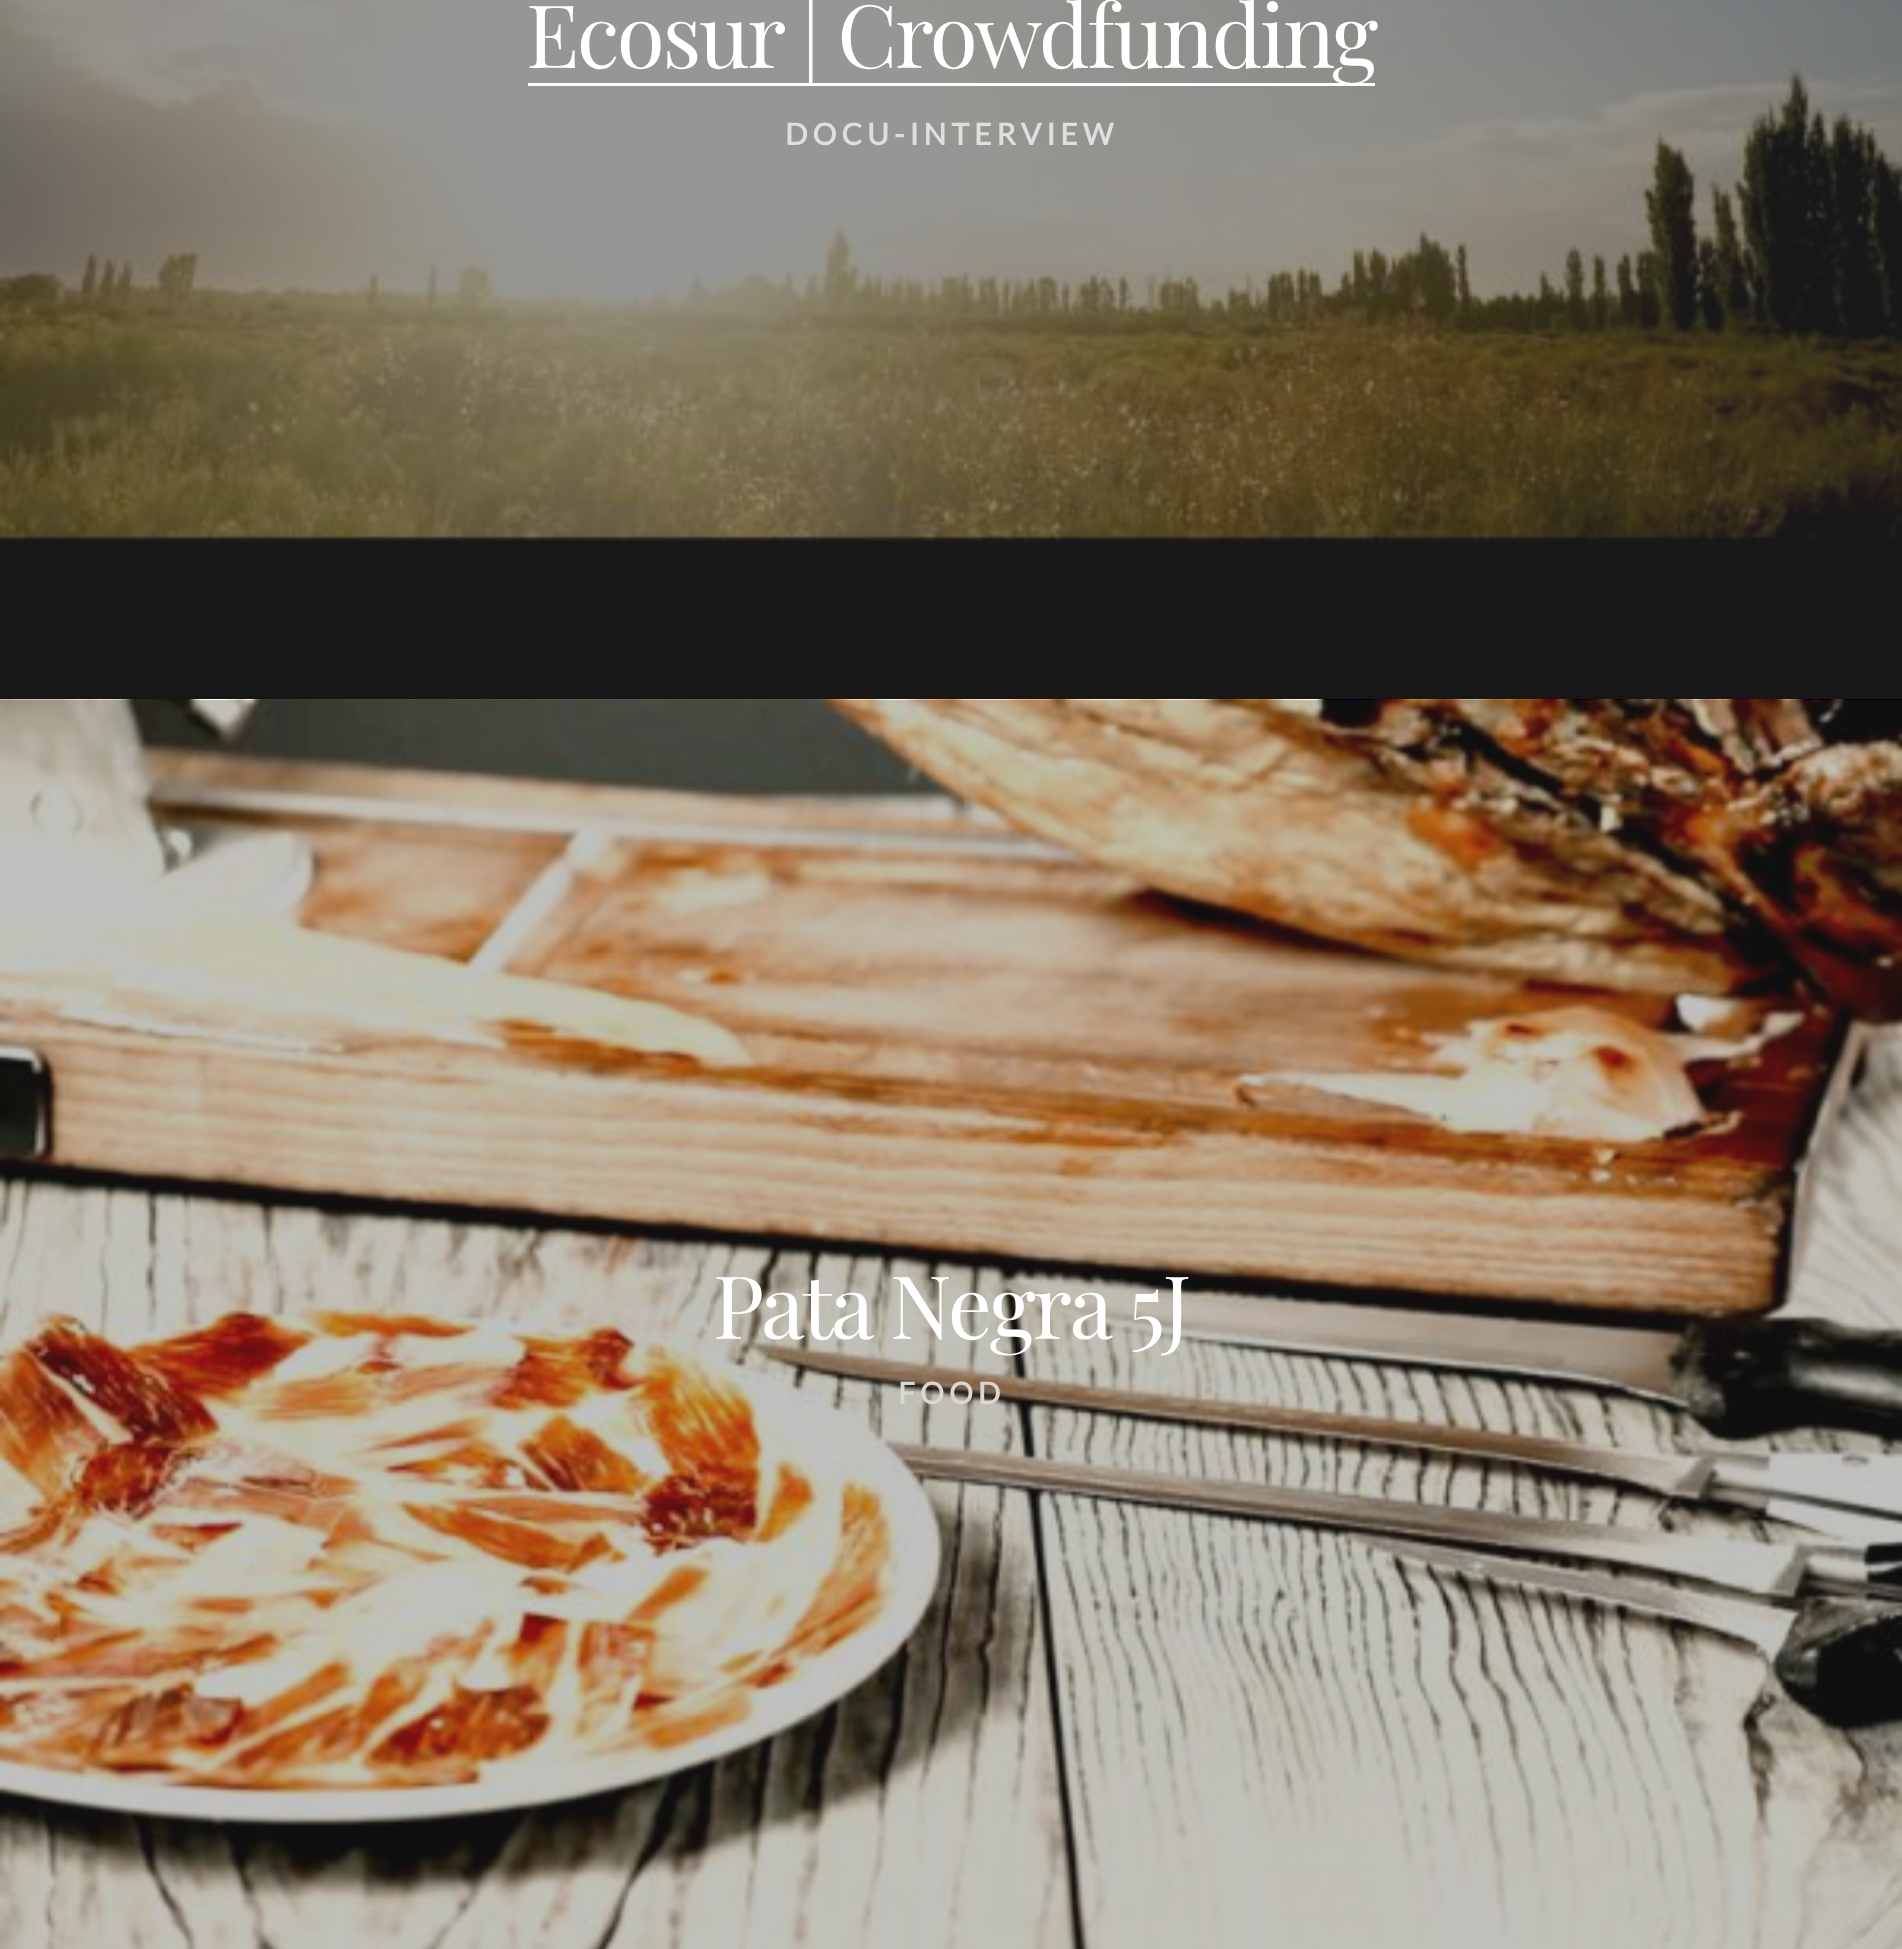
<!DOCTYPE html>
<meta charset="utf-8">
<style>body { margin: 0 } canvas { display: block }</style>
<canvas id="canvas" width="1902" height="1949"></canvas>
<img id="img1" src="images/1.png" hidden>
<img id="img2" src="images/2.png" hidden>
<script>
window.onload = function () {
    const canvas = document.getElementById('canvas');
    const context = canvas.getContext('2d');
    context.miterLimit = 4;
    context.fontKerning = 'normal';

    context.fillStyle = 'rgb(255, 255, 255)';
    context.fillRect(0, 0, 1902, 1949);
    context.drawImage(document.getElementById('img1'), 0, 0, 1902, 699);
    context.fillRect(528, 83, 847, 3);
    context.drawImage(document.getElementById('img2'), 0, 699, 1902, 1250);
    context.letterSpacing = '-2.5px';
    context.font = '87.5px Playfair Display';
    context.fillText('Ecosur | Crowdfunding', 526, 68);
    context.letterSpacing = '5px';
    context.font = 'bold 30px Lato';
    context.fillStyle = 'rgb(223, 223, 223)';
    context.fillText('DOCU-INTERVIEW', 785, 145);
    context.letterSpacing = '-2.5px';
    context.font = '87.5px Playfair Display';
    context.fillStyle = 'rgb(255, 255, 255)';
    context.fillText('Pata Negra 5J', 713, 1339);
    context.letterSpacing = '5px';
    context.font = 'bold 30px Lato';
    context.fillStyle = 'rgb(218, 215, 210)';
    context.fillText('FOOD', 898, 1404);
};
</script>
